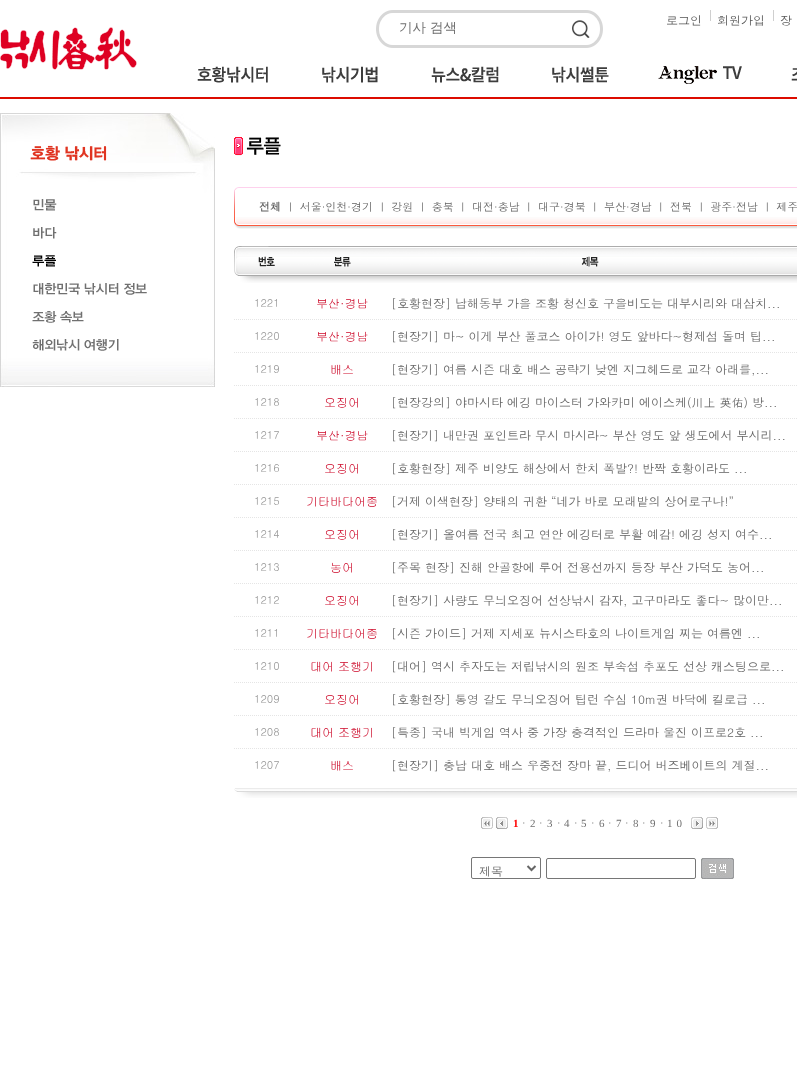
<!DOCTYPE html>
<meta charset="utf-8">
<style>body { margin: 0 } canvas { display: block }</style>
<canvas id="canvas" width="797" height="1088"></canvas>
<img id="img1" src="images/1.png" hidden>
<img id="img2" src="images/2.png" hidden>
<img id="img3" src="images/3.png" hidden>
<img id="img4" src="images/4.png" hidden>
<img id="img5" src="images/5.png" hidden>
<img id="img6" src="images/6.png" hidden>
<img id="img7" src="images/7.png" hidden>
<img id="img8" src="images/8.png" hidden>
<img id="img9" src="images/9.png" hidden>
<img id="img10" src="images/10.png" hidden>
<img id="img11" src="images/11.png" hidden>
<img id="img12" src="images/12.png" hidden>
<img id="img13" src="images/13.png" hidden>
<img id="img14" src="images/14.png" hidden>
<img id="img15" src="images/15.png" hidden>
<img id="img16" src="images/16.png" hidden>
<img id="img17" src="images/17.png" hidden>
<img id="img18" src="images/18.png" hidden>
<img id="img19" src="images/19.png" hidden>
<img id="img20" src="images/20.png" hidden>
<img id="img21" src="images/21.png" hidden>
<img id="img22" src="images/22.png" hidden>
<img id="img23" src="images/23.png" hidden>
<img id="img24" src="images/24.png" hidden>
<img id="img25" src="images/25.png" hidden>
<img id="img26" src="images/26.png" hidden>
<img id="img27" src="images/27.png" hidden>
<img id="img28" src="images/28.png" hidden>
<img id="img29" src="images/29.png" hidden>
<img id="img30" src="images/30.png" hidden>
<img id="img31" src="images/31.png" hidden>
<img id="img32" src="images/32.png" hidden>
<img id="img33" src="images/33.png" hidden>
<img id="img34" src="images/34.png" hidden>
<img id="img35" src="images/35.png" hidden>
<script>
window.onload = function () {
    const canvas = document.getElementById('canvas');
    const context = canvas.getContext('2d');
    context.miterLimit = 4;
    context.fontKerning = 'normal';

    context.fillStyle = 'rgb(255, 255, 255)';
    context.fillRect(0, 0, 797, 1088);
    context.fillStyle = 'rgb(220, 12, 0)';
    context.fillRect(0, 97, 797, 2);
    context.fillStyle = 'rgb(207, 207, 207)';
    context.fillRect(710, 10, 1, 11);
    context.fillRect(773, 10, 1, 11);
    context.drawImage(document.getElementById('img1'), 0, 27, 137, 43);
    context.drawImage(document.getElementById('img2'), 376, 10, 227, 38);
    context.drawImage(document.getElementById('img3'), 572, 20, 18, 18);
    context.drawImage(document.getElementById('img4'), 197, 66, 71, 17);
    context.drawImage(document.getElementById('img5'), 322, 66, 56, 17);
    context.drawImage(document.getElementById('img6'), 431, 66, 68, 17);
    context.drawImage(document.getElementById('img7'), 552, 66, 57, 17);
    context.drawImage(document.getElementById('img8'), 658, 66, 84, 18);
    context.drawImage(document.getElementById('img9'), 791, 68, 6, 13);
    context.drawImage(document.getElementById('img10'), 0, 113, 215, 244);
    context.drawImage(document.getElementById('img11'), 30, 145, 77, 16);
    context.drawImage(document.getElementById('img12'), 33, 199, 24, 12);
    context.drawImage(document.getElementById('img13'), 33, 227, 24, 12);
    context.drawImage(document.getElementById('img14'), 32, 255, 24, 12);
    context.drawImage(document.getElementById('img15'), 33, 283, 114, 12);
    context.drawImage(document.getElementById('img16'), 32, 311, 52, 12);
    context.drawImage(document.getElementById('img17'), 32, 339, 87, 12);
    context.drawImage(document.getElementById('img18'), 0, 357, 215, 30);
    context.drawImage(document.getElementById('img19'), 234, 137, 47, 19);
    context.drawImage(document.getElementById('img20'), 234, 187, 10, 10);
    context.fillStyle = 'rgb(254, 209, 237)';
    context.fillRect(244, 187, 553, 1);
    context.drawImage(document.getElementById('img21'), 234, 197, 1, 20);
    context.drawImage(document.getElementById('img22'), 234, 217, 10, 12);
    context.drawImage(document.getElementById('img23'), 244, 217, 553, 12);
    context.drawImage(document.getElementById('img24'), 234, 246, 563, 30);
    context.drawImage(document.getElementById('img25'), 258, 256, 17, 11);
    context.drawImage(document.getElementById('img26'), 334, 257, 17, 10);
    context.drawImage(document.getElementById('img27'), 581, 256, 18, 11);
    context.drawImage(document.getElementById('img28'), 240, 276, 557, 7);
    context.drawImage(document.getElementById('img29'), 234, 319, 563, 1);
    context.drawImage(document.getElementById('img29'), 234, 352, 563, 1);
    context.drawImage(document.getElementById('img29'), 234, 385, 563, 1);
    context.drawImage(document.getElementById('img29'), 234, 418, 563, 1);
    context.drawImage(document.getElementById('img29'), 234, 451, 563, 1);
    context.drawImage(document.getElementById('img29'), 234, 484, 563, 1);
    context.drawImage(document.getElementById('img29'), 234, 517, 563, 1);
    context.drawImage(document.getElementById('img29'), 234, 550, 563, 1);
    context.drawImage(document.getElementById('img29'), 234, 583, 563, 1);
    context.drawImage(document.getElementById('img29'), 234, 616, 563, 1);
    context.drawImage(document.getElementById('img29'), 234, 649, 563, 1);
    context.drawImage(document.getElementById('img29'), 234, 682, 563, 1);
    context.drawImage(document.getElementById('img29'), 234, 715, 563, 1);
    context.drawImage(document.getElementById('img29'), 234, 748, 563, 1);
    context.drawImage(document.getElementById('img30'), 234, 788, 563, 10);
    context.drawImage(document.getElementById('img31'), 481, 817, 12, 12);
    context.drawImage(document.getElementById('img32'), 496, 817, 12, 12);
    context.drawImage(document.getElementById('img33'), 691, 817, 12, 12);
    context.drawImage(document.getElementById('img34'), 706, 817, 12, 12);
    context.beginPath();
    context.roundRect(471.5, 857.5, 69, 21, 1.5);
    context.strokeStyle = 'rgb(118, 118, 118)';
    context.stroke();
    context.beginPath();
    context.moveTo(527.5, 866);
    context.lineTo(531.5, 870);
    context.lineTo(535.5, 866);
    context.strokeStyle = 'rgb(102, 102, 102)';
    context.lineWidth = 2;
    context.stroke();
    context.beginPath();
    context.roundRect(546.5, 858.5, 149, 20, 1.5);
    context.strokeStyle = 'rgb(118, 118, 118)';
    context.lineWidth = 1;
    context.stroke();
    context.drawImage(document.getElementById('img35'), 701, 858, 33, 21);
    context.font = '12px Dotum';
    context.fillStyle = 'rgb(85, 85, 85)';
    context.fillText('로그인', 666, 25);
    context.fillText('회원가입', 717, 25);
    context.fillText('장', 780, 25);
    context.font = '500 13.5px WenQuanYi Zen Hei';
    context.fillStyle = 'rgb(112, 112, 112)';
    context.fillText('기사 검색', 399, 32);
    context.font = 'bold 11px Dotum';
    context.fillStyle = 'rgb(99, 99, 99)';
    context.fillText('전체', 259, 211);
    context.font = '11px Dotum';
    context.fillText('ㅣ 서울·인천·경기 ㅣ 강원 ㅣ 충북 ㅣ 대전·충남 ㅣ 대구·경북 ㅣ 부산·경남 ㅣ 전북 ㅣ 광주·전남 ㅣ 제주', 285, 211);
    context.fillStyle = 'rgb(153, 153, 153)';
    context.fillText('1221', 254, 307);
    context.font = '12px Gulim';
    context.fillStyle = 'rgb(205, 9, 41)';
    context.fillText('부산·경남', 316, 308);
    context.font = '12px Dotum';
    context.fillStyle = 'rgb(99, 99, 99)';
    context.fillText('[호황현장] 남해동부 가을 조황 청신호 구을비도는 대부시리와 대삼치...', 391, 308);
    context.font = '11px Dotum';
    context.fillStyle = 'rgb(153, 153, 153)';
    context.fillText('1220', 254, 340);
    context.font = '12px Gulim';
    context.fillStyle = 'rgb(205, 9, 41)';
    context.fillText('부산·경남', 316, 341);
    context.font = '12px Dotum';
    context.fillStyle = 'rgb(99, 99, 99)';
    context.fillText('[현장기] 마~ 이게 부산 풀코스 아이가! 영도 앞바다~형제섬 돌며 팁...', 391, 341);
    context.font = '11px Dotum';
    context.fillStyle = 'rgb(153, 153, 153)';
    context.fillText('1219', 254, 373);
    context.font = '12px Gulim';
    context.fillStyle = 'rgb(205, 9, 41)';
    context.fillText('배스', 330, 374);
    context.font = '12px Dotum';
    context.fillStyle = 'rgb(99, 99, 99)';
    context.fillText('[현장기] 여름 시즌 대호 배스 공략기 낮엔 지그헤드로 교각 아래를,...', 391, 374);
    context.font = '11px Dotum';
    context.fillStyle = 'rgb(153, 153, 153)';
    context.fillText('1218', 254, 406);
    context.font = '12px Gulim';
    context.fillStyle = 'rgb(205, 9, 41)';
    context.fillText('오징어', 324, 407);
    context.font = '12px Dotum';
    context.fillStyle = 'rgb(99, 99, 99)';
    context.fillText('[현장강의] 야마시타 에깅 마이스터 가와카미 에이스케(川上 英佑) 방...', 391, 407);
    context.font = '11px Dotum';
    context.fillStyle = 'rgb(153, 153, 153)';
    context.fillText('1217', 254, 439);
    context.font = '12px Gulim';
    context.fillStyle = 'rgb(205, 9, 41)';
    context.fillText('부산·경남', 316, 440);
    context.font = '12px Dotum';
    context.fillStyle = 'rgb(99, 99, 99)';
    context.fillText('[현장기] 내만권 포인트라 무시 마시라~ 부산 영도 앞 생도에서 부시리...', 391, 440);
    context.font = '11px Dotum';
    context.fillStyle = 'rgb(153, 153, 153)';
    context.fillText('1216', 254, 472);
    context.font = '12px Gulim';
    context.fillStyle = 'rgb(205, 9, 41)';
    context.fillText('오징어', 324, 473);
    context.font = '12px Dotum';
    context.fillStyle = 'rgb(99, 99, 99)';
    context.fillText('[호황현장] 제주 비양도 해상에서 한치 폭발?! 반짝 호황이라도 ...', 391, 473);
    context.font = '11px Dotum';
    context.fillStyle = 'rgb(153, 153, 153)';
    context.fillText('1215', 254, 505);
    context.font = '12px Gulim';
    context.fillStyle = 'rgb(205, 9, 41)';
    context.fillText('기타바다어종', 306, 506);
    context.font = '12px Dotum';
    context.fillStyle = 'rgb(99, 99, 99)';
    context.fillText('[거제 이색현장] 양태의 귀환 “네가 바로 모래밭의 상어로구나!”', 391, 506);
    context.font = '11px Dotum';
    context.fillStyle = 'rgb(153, 153, 153)';
    context.fillText('1214', 254, 538);
    context.font = '12px Gulim';
    context.fillStyle = 'rgb(205, 9, 41)';
    context.fillText('오징어', 324, 539);
    context.font = '12px Dotum';
    context.fillStyle = 'rgb(99, 99, 99)';
    context.fillText('[현장기] 올여름 전국 최고 연안 에깅터로 부활 예감! 에깅 성지 여수...', 391, 539);
    context.font = '11px Dotum';
    context.fillStyle = 'rgb(153, 153, 153)';
    context.fillText('1213', 254, 571);
    context.font = '12px Gulim';
    context.fillStyle = 'rgb(205, 9, 41)';
    context.fillText('농어', 330, 572);
    context.font = '12px Dotum';
    context.fillStyle = 'rgb(99, 99, 99)';
    context.fillText('[주목 현장] 진해 안골항에 루어 전용선까지 등장 부산 가덕도 농어...', 391, 572);
    context.font = '11px Dotum';
    context.fillStyle = 'rgb(153, 153, 153)';
    context.fillText('1212', 254, 604);
    context.font = '12px Gulim';
    context.fillStyle = 'rgb(205, 9, 41)';
    context.fillText('오징어', 324, 605);
    context.font = '12px Dotum';
    context.fillStyle = 'rgb(99, 99, 99)';
    context.fillText('[현장기] 사량도 무늬오징어 선상낚시 감자, 고구마라도 좋다~ 많이만...', 391, 605);
    context.font = '11px Dotum';
    context.fillStyle = 'rgb(153, 153, 153)';
    context.fillText('1211', 254, 637);
    context.font = '12px Gulim';
    context.fillStyle = 'rgb(205, 9, 41)';
    context.fillText('기타바다어종', 306, 638);
    context.font = '12px Dotum';
    context.fillStyle = 'rgb(99, 99, 99)';
    context.fillText('[시즌 가이드] 거제 지세포 뉴시스타호의 나이트게임 찌는 여름엔 ...', 391, 638);
    context.font = '11px Dotum';
    context.fillStyle = 'rgb(153, 153, 153)';
    context.fillText('1210', 254, 670);
    context.font = '12px Gulim';
    context.fillStyle = 'rgb(205, 9, 41)';
    context.fillText('대어 조행기', 310, 671);
    context.font = '12px Dotum';
    context.fillStyle = 'rgb(99, 99, 99)';
    context.fillText('[대어] 역시 추자도는 저립낚시의 원조 부속섬 추포도 선상 캐스팅으로...', 391, 671);
    context.font = '11px Dotum';
    context.fillStyle = 'rgb(153, 153, 153)';
    context.fillText('1209', 254, 703);
    context.font = '12px Gulim';
    context.fillStyle = 'rgb(205, 9, 41)';
    context.fillText('오징어', 324, 704);
    context.font = '12px Dotum';
    context.fillStyle = 'rgb(99, 99, 99)';
    context.fillText('[호황현장] 통영 갈도 무늬오징어 팁런 수심 10m권 바닥에 킬로급 ...', 391, 704);
    context.font = '11px Dotum';
    context.fillStyle = 'rgb(153, 153, 153)';
    context.fillText('1208', 254, 736);
    context.font = '12px Gulim';
    context.fillStyle = 'rgb(205, 9, 41)';
    context.fillText('대어 조행기', 310, 737);
    context.font = '12px Dotum';
    context.fillStyle = 'rgb(99, 99, 99)';
    context.fillText('[특종] 국내 빅게임 역사 중 가장 충격적인 드라마 울진 이프로2호 ...', 391, 737);
    context.font = '11px Dotum';
    context.fillStyle = 'rgb(153, 153, 153)';
    context.fillText('1207', 254, 769);
    context.font = '12px Gulim';
    context.fillStyle = 'rgb(205, 9, 41)';
    context.fillText('배스', 330, 770);
    context.font = '12px Dotum';
    context.fillStyle = 'rgb(99, 99, 99)';
    context.fillText('[현장기] 충남 대호 배스 우중전 장마 끝, 드디어 버즈베이트의 계절...', 391, 770);
    context.letterSpacing = '4px';
    context.font = 'bold 11px Liberation Serif';
    context.fillStyle = 'rgb(255, 0, 0)';
    context.fillText('1', 513, 827);
    context.font = '11px Dotum';
    context.fillStyle = 'rgb(112, 112, 112)';
    context.fillText('·', 522, 827);
    context.font = '11px Liberation Serif';
    context.fillText('2', 530, 827);
    context.font = '11px Dotum';
    context.fillText('·', 539, 827);
    context.font = '11px Liberation Serif';
    context.fillText('3', 547, 827);
    context.font = '11px Dotum';
    context.fillText('·', 557, 827);
    context.font = '11px Liberation Serif';
    context.fillText('4', 564, 827);
    context.font = '11px Dotum';
    context.fillText('·', 574, 827);
    context.font = '11px Liberation Serif';
    context.fillText('5', 581, 827);
    context.font = '11px Dotum';
    context.fillText('·', 591, 827);
    context.font = '11px Liberation Serif';
    context.fillText('6', 599, 827);
    context.font = '11px Dotum';
    context.fillText('·', 608, 827);
    context.font = '11px Liberation Serif';
    context.fillText('7', 616, 827);
    context.font = '11px Dotum';
    context.fillText('·', 625, 827);
    context.font = '11px Liberation Serif';
    context.fillText('8', 633, 827);
    context.font = '11px Dotum';
    context.fillText('·', 642, 827);
    context.font = '11px Liberation Serif';
    context.fillText('9', 650, 827);
    context.font = '11px Dotum';
    context.fillText('·', 660, 827);
    context.font = '11px Liberation Serif';
    context.fillText('10', 667, 827);
    context.letterSpacing = '0px';
    context.font = '12px Dotum';
    context.fillStyle = 'rgb(99, 99, 99)';
    context.fillText('제목', 479, 876);
};
</script>
